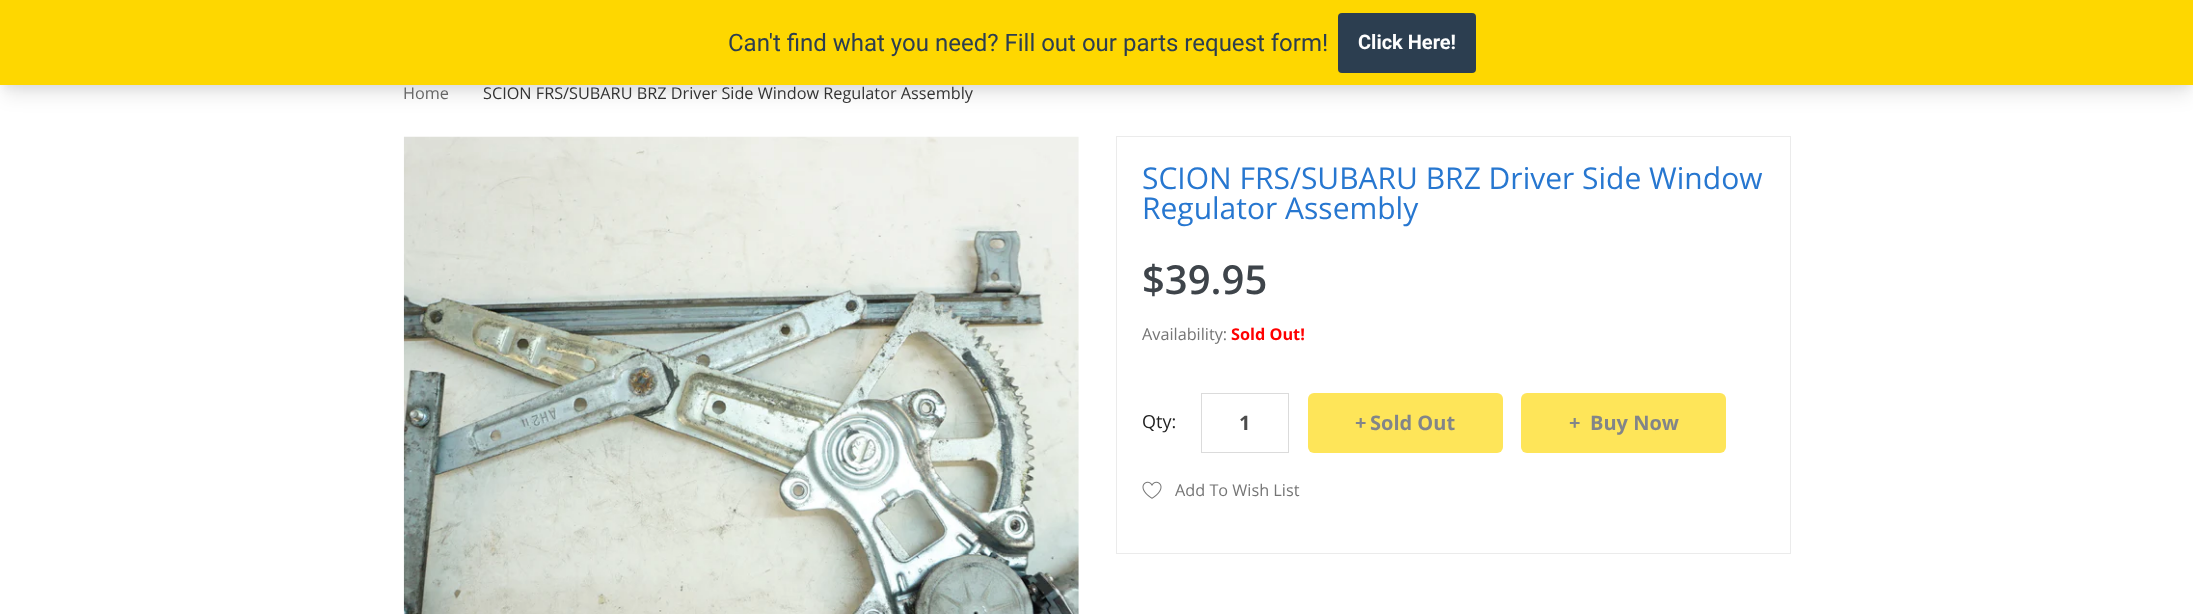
<!DOCTYPE html>
<meta charset="utf-8">
<style>body { margin: 0 } canvas { display: block }</style>
<canvas id="canvas" width="2193" height="614"></canvas>
<img id="img1" src="images/1.png" hidden>
<img id="img2" src="images/2.png" hidden>
<script>
window.onload = function () {
    const canvas = document.getElementById('canvas');
    const context = canvas.getContext('2d');
    context.miterLimit = 4;
    context.fontKerning = 'normal';

    context.fillStyle = 'rgb(255, 255, 255)';
    context.fillRect(0, 0, 2193, 614);
    context.fillStyle = 'rgba(0, 0, 0, 0.05)';
    context.filter = 'blur(4px)';
    context.beginPath();
    context.rect(3, 8, 2188, 80);
    context.fill();
    context.filter = 'none';
    context.fillStyle = 'rgba(0, 0, 0, 0.1)';
    context.filter = 'blur(9.5px)';
    context.beginPath();
    context.rect(4, 16, 2186, 78);
    context.fill();
    context.filter = 'none';
    context.fillStyle = 'rgb(254, 215, 0)';
    context.fillRect(0, 0, 2193, 85);
    context.fillStyle = 'rgb(44, 62, 80)';
    context.beginPath();
    context.roundRect(1338, 13, 138, 60, 4);
    context.fill();
    context.drawImage(document.getElementById('img1'), 403, 136, 676, 478);
    context.strokeStyle = 'rgb(235, 235, 235)';
    context.strokeRect(1116.5, 136.5, 674, 417);
    context.strokeStyle = 'rgb(219, 219, 219)';
    context.strokeRect(1201.5, 393.5, 87, 59);
    context.fillStyle = 'rgb(254, 229, 89)';
    context.beginPath();
    context.roundRect(1308, 393, 195, 60, 6);
    context.fill();
    context.beginPath();
    context.roundRect(1521, 393, 205, 60, 6);
    context.fill();
    context.drawImage(document.getElementById('img2'), 1142, 481, 20, 18);
    context.font = '24px Roboto';
    context.fillStyle = 'rgb(44, 62, 80)';
    context.fillText('Can\'t find what you need? Fill out our parts request form!', 728, 51);
    context.font = 'bold 20px Roboto';
    context.fillStyle = 'rgb(254, 254, 254)';
    context.fillText('Click Here!', 1358, 49);
    context.font = '16.25px Open Sans';
    context.fillStyle = 'rgb(102, 102, 102)';
    context.fillText('Home', 403, 99);
    context.fillStyle = 'rgb(51, 51, 51)';
    context.fillText('SCION FRS/SUBARU BRZ Driver Side Window Regulator Assembly', 483, 99);
    context.font = '30px Open Sans';
    context.fillStyle = 'rgb(39, 119, 208)';
    context.fillText('SCION FRS/SUBARU BRZ Driver Side Window', 1142, 189);
    context.fillText('Regulator Assembly', 1142, 219);
    context.font = '600 40px Open Sans';
    context.fillStyle = 'rgb(62, 68, 74)';
    context.fillText('$39.95', 1142, 294);
    context.font = '16.25px Open Sans';
    context.fillStyle = 'rgb(117, 117, 117)';
    context.fillText('Availability:', 1142, 340);
    context.font = 'bold 16.25px Open Sans';
    context.fillStyle = 'rgb(255, 0, 0)';
    context.fillText('Sold Out!', 1231, 340);
    context.font = '18px Open Sans';
    context.fillStyle = 'rgb(34, 34, 34)';
    context.fillText('Qty:', 1142, 428);
    context.font = 'bold 20px Open Sans';
    context.fillStyle = 'rgb(76, 76, 76)';
    context.fillText('1', 1239, 430);
    context.fillStyle = 'rgb(130, 133, 137)';
    context.fillText('+', 1355, 430);
    context.fillText('Sold Out', 1370, 430);
    context.fillText('+', 1569, 430);
    context.fillText('Buy Now', 1590, 430);
    context.font = '16.25px Open Sans';
    context.fillStyle = 'rgb(117, 117, 117)';
    context.fillText('Add To Wish List', 1175, 496);
};
</script>
